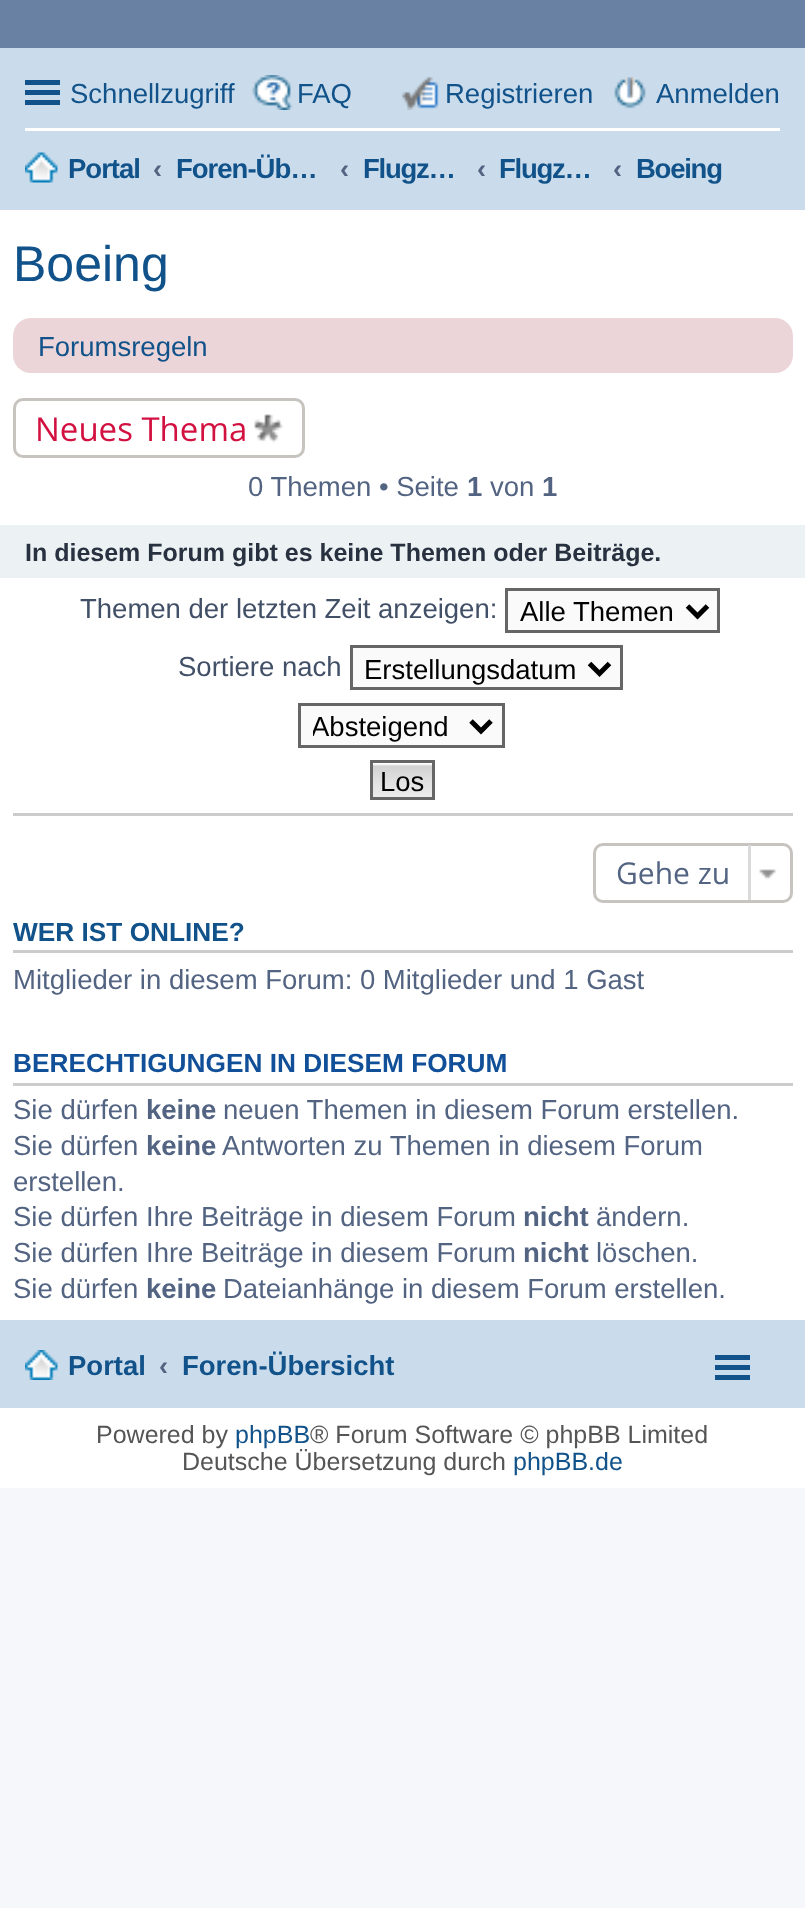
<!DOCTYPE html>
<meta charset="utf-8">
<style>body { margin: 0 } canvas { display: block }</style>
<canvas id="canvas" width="805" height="1908"></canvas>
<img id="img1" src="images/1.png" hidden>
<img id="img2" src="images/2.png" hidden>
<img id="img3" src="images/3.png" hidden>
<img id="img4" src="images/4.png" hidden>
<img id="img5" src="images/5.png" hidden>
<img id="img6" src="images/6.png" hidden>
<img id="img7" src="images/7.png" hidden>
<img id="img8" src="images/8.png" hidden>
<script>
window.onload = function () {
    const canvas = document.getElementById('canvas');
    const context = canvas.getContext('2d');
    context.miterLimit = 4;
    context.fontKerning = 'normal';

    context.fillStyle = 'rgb(245, 247, 250)';
    context.fillRect(0, 0, 805, 1908);
    context.fillStyle = 'rgb(255, 255, 255)';
    context.fillRect(0, 210, 805, 1278);
    context.fillStyle = 'rgb(105, 129, 163)';
    context.fillRect(0, 0, 805, 48);
    context.fillStyle = 'rgb(202, 220, 235)';
    context.fillRect(0, 48, 805, 162);
    context.fillStyle = 'rgb(16, 82, 137)';
    context.fillRect(25, 80, 35, 5);
    context.fillRect(25, 90, 35, 5);
    context.fillRect(25, 100, 35, 5);
    context.drawImage(document.getElementById('img1'), 252, 75, 41, 35);
    context.drawImage(document.getElementById('img2'), 401, 76, 38, 34);
    context.drawImage(document.getElementById('img3'), 614, 77, 32, 32);
    context.fillStyle = 'rgb(255, 255, 255)';
    context.fillRect(25, 128, 755, 3);
    context.drawImage(document.getElementById('img4'), 25, 152, 33, 31);
    context.fillStyle = 'rgb(236, 213, 216)';
    context.beginPath();
    context.roundRect(13, 318, 780, 55, 18);
    context.fill();
    context.beginPath();
    context.roundRect(14.5, 399.5, 289, 57, 8.5);
    context.strokeStyle = 'rgb(199, 195, 191)';
    context.lineWidth = 3;
    context.stroke();
    context.drawImage(document.getElementById('img5'), 254, 414, 29, 29);
    context.fillStyle = 'rgb(236, 241, 243)';
    context.fillRect(0, 525, 805, 53);
    context.fillStyle = 'rgb(250, 250, 250)';
    context.beginPath();
    context.rect(506.5, 589.5, 212, 42);
    context.fill();
    context.strokeStyle = 'rgb(102, 102, 102)';
    context.stroke();
    context.beginPath();
    context.moveTo(687.5, 606);
    context.lineTo(697.5, 616);
    context.lineTo(707.5, 606);
    context.strokeStyle = 'rgb(0, 0, 0)';
    context.lineWidth = 5;
    context.stroke();
    context.beginPath();
    context.rect(351.5, 646.5, 270, 42);
    context.fill();
    context.strokeStyle = 'rgb(102, 102, 102)';
    context.lineWidth = 3;
    context.stroke();
    context.beginPath();
    context.moveTo(589.5, 663.5);
    context.lineTo(599.5, 673.5);
    context.lineTo(609.5, 663.5);
    context.strokeStyle = 'rgb(0, 0, 0)';
    context.lineWidth = 5;
    context.stroke();
    context.beginPath();
    context.rect(299.5, 704.5, 204, 42);
    context.fill();
    context.strokeStyle = 'rgb(102, 102, 102)';
    context.lineWidth = 3;
    context.stroke();
    context.beginPath();
    context.moveTo(471, 721);
    context.lineTo(481, 731);
    context.lineTo(491, 721);
    context.strokeStyle = 'rgb(0, 0, 0)';
    context.lineWidth = 5;
    context.stroke();
    context.drawImage(document.getElementById('img6'), 373, 763, 59, 34);
    context.strokeStyle = 'rgb(102, 102, 102)';
    context.lineWidth = 3;
    context.strokeRect(371.5, 761.5, 62, 37);
    context.fillStyle = 'rgb(204, 204, 204)';
    context.fillRect(13, 813, 780, 3);
    context.beginPath();
    context.roundRect(594.5, 844.5, 197, 57, 8.5);
    context.strokeStyle = 'rgb(199, 195, 191)';
    context.stroke();
    context.drawImage(document.getElementById('img7'), 759, 869, 18, 11);
    context.fillStyle = 'rgb(218, 218, 218)';
    context.fillRect(748, 845, 3, 55);
    context.fillStyle = 'rgb(204, 204, 204)';
    context.fillRect(13, 950, 780, 3);
    context.fillRect(13, 1083, 780, 3);
    context.fillStyle = 'rgb(202, 220, 235)';
    context.fillRect(0, 1320, 805, 88);
    context.drawImage(document.getElementById('img8'), 25, 1350, 33, 30);
    context.fillStyle = 'rgb(16, 82, 137)';
    context.fillRect(715, 1355, 35, 5);
    context.fillRect(715, 1365, 35, 5);
    context.fillRect(715, 1375, 35, 5);
    context.font = '27.5px Liberation Sans';
    context.fillText('Schnellzugriff', 70, 103);
    context.fillText('FAQ', 297, 103);
    context.fillText('Registrieren', 445, 103);
    context.fillText('Anmelden', 656, 103);
    context.letterSpacing = '-1px';
    context.font = 'bold 27.5px Liberation Sans';
    context.fillText('Portal', 68, 178);
    context.letterSpacing = '0px';
    context.fillStyle = 'rgb(83, 100, 130)';
    context.fillText('‹', 153, 178);
    context.letterSpacing = '-1px';
    context.fillStyle = 'rgb(16, 82, 137)';
    context.fillText('Foren-Üb…', 176, 178);
    context.letterSpacing = '0px';
    context.fillStyle = 'rgb(83, 100, 130)';
    context.fillText('‹', 340, 178);
    context.letterSpacing = '-1.25px';
    context.fillStyle = 'rgb(16, 82, 137)';
    context.fillText('Flugz…', 363, 178);
    context.letterSpacing = '0px';
    context.fillStyle = 'rgb(83, 100, 130)';
    context.fillText('‹', 477, 178);
    context.letterSpacing = '-1.25px';
    context.fillStyle = 'rgb(16, 82, 137)';
    context.fillText('Flugz…', 499, 178);
    context.letterSpacing = '0px';
    context.fillStyle = 'rgb(83, 100, 130)';
    context.fillText('‹', 613, 178);
    context.letterSpacing = '-1.25px';
    context.fillStyle = 'rgb(16, 82, 137)';
    context.fillText('Boeing', 636, 178);
    context.letterSpacing = '0px';
    context.font = '50px Liberation Sans';
    context.fillText('Boeing', 13, 281);
    context.font = '27.5px Liberation Sans';
    context.fillText('Forumsregeln', 38, 356);
    context.font = '33px Open Sans';
    context.fillStyle = 'rgb(211, 17, 65)';
    context.fillText('Neues Thema', 35, 441);
    context.font = '27.5px Liberation Sans';
    context.fillStyle = 'rgb(83, 100, 130)';
    context.fillText('0 Themen • Seite', 248, 496);
    context.font = 'bold 27.5px Liberation Sans';
    context.fillText('1', 467, 496);
    context.font = '27.5px Liberation Sans';
    context.fillText('von', 490, 496);
    context.font = 'bold 27.5px Liberation Sans';
    context.fillText('1', 542, 496);
    context.font = 'bold 25px Liberation Sans';
    context.fillStyle = 'rgb(40, 49, 63)';
    context.fillText('In diesem Forum gibt es keine Themen oder Beiträge.', 25, 561);
    context.font = '27.5px Liberation Sans';
    context.fillStyle = 'rgb(66, 80, 103)';
    context.fillText('Themen der letzten Zeit anzeigen:', 80, 618);
    context.fillStyle = 'rgb(0, 0, 0)';
    context.fillText('Alle Themen', 520, 621);
    context.fillStyle = 'rgb(66, 80, 103)';
    context.fillText('Sortiere nach', 178, 676);
    context.fillStyle = 'rgb(0, 0, 0)';
    context.fillText('Erstellungsdatum', 364, 679);
    context.save();
    context.beginPath();
    context.rect(313, 708, 147, 35);
    context.clip();
    context.fillText('Absteigend', 311, 736);
    context.restore();
    context.fillText('Los', 380, 791);
    context.font = '30px Open Sans';
    context.fillStyle = 'rgb(83, 100, 130)';
    context.fillText('Gehe zu', 616, 884);
    context.font = 'bold 26.25px Liberation Sans';
    context.fillStyle = 'rgb(16, 82, 137)';
    context.fillText('WER IST ONLINE?', 13, 941);
    context.font = '27.5px Liberation Sans';
    context.fillStyle = 'rgb(83, 100, 130)';
    context.fillText('Mitglieder in diesem Forum: 0 Mitglieder und 1 Gast', 13, 989);
    context.font = 'bold 26.25px Liberation Sans';
    context.fillStyle = 'rgb(17, 80, 152)';
    context.fillText('BERECHTIGUNGEN IN DIESEM FORUM', 13, 1072);
    context.font = '27.5px Liberation Sans';
    context.fillStyle = 'rgb(83, 100, 130)';
    context.fillText('Sie dürfen', 13, 1119);
    context.font = 'bold 27.5px Liberation Sans';
    context.fillText('keine', 146, 1119);
    context.font = '27.5px Liberation Sans';
    context.fillText('neuen Themen in diesem Forum erstellen.', 223, 1119);
    context.fillText('Sie dürfen', 13, 1155);
    context.font = 'bold 27.5px Liberation Sans';
    context.fillText('keine', 146, 1155);
    context.font = '27.5px Liberation Sans';
    context.fillText('Antworten zu Themen in diesem Forum', 222, 1155);
    context.fillText('erstellen.', 13, 1191);
    context.fillText('Sie dürfen Ihre Beiträge in diesem Forum', 13, 1226);
    context.font = 'bold 27.5px Liberation Sans';
    context.fillText('nicht', 523, 1226);
    context.font = '27.5px Liberation Sans';
    context.fillText('ändern.', 596, 1226);
    context.fillText('Sie dürfen Ihre Beiträge in diesem Forum', 13, 1262);
    context.font = 'bold 27.5px Liberation Sans';
    context.fillText('nicht', 523, 1262);
    context.font = '27.5px Liberation Sans';
    context.fillText('löschen.', 596, 1262);
    context.fillText('Sie dürfen', 13, 1298);
    context.font = 'bold 27.5px Liberation Sans';
    context.fillText('keine', 146, 1298);
    context.font = '27.5px Liberation Sans';
    context.fillText('Dateianhänge in diesem Forum erstellen.', 223, 1298);
    context.font = 'bold 27.5px Liberation Sans';
    context.fillStyle = 'rgb(16, 82, 137)';
    context.fillText('Portal', 68, 1375);
    context.fillStyle = 'rgb(83, 100, 130)';
    context.fillText('‹', 159, 1375);
    context.fillStyle = 'rgb(16, 82, 137)';
    context.fillText('Foren-Übersicht', 182, 1375);
    context.font = '25px Liberation Sans';
    context.fillStyle = 'rgb(85, 85, 85)';
    context.fillText('Powered by', 96, 1443);
    context.fillStyle = 'rgb(16, 82, 137)';
    context.fillText('phpBB', 235, 1443);
    context.fillStyle = 'rgb(85, 85, 85)';
    context.fillText('® Forum Software © phpBB Limited', 310, 1443);
    context.fillText('Deutsche Übersetzung durch', 182, 1470);
    context.fillStyle = 'rgb(16, 82, 137)';
    context.fillText('phpBB.de', 513, 1470);
};
</script>
